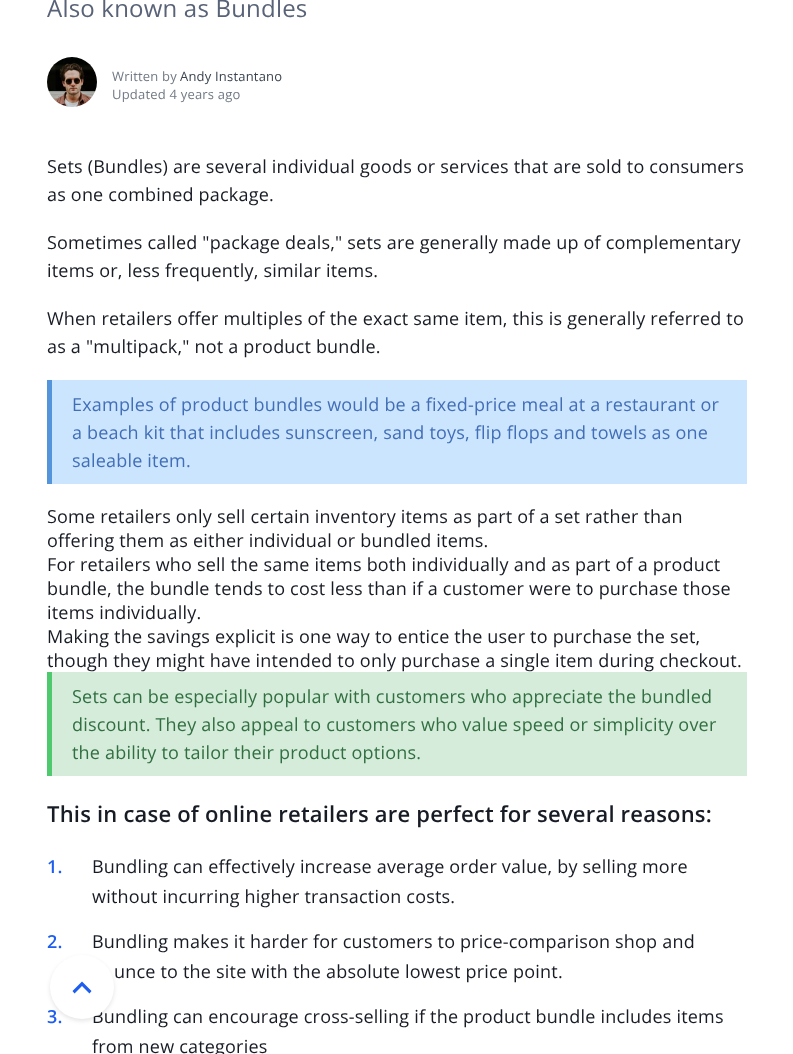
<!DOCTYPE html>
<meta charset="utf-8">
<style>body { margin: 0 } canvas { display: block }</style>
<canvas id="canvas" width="793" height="1054"></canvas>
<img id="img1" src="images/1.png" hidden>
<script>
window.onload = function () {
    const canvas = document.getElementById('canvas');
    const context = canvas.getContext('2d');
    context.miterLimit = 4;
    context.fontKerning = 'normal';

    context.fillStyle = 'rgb(255, 255, 255)';
    context.fillRect(0, 0, 793, 1054);
    context.drawImage(document.getElementById('img1'), 47, 57, 50, 50);
    context.fillStyle = 'rgb(204, 229, 255)';
    context.fillRect(52, 380, 695, 104);
    context.fillStyle = 'rgb(84, 148, 219)';
    context.fillRect(47, 380, 5, 104);
    context.fillStyle = 'rgb(213, 236, 218)';
    context.fillRect(52, 672, 695, 104);
    context.fillStyle = 'rgb(78, 201, 110)';
    context.fillRect(47, 672, 5, 104);
    context.fillStyle = 'rgba(0, 0, 0, 0.1)';
    context.filter = 'blur(2px)';
    context.beginPath();
    context.roundRect(50, 957, 64, 64, 32);
    context.fill();
    context.filter = 'none';
    context.letterSpacing = '0.2px';
    context.font = '24px Open Sans';
    context.fillStyle = 'rgb(89, 99, 120)';
    context.fillText('Also known as Bundles', 47, 17);
    context.font = '13px Open Sans';
    context.fillStyle = 'rgb(113, 122, 132)';
    context.fillText('Written by', 112, 81);
    context.fillStyle = 'rgb(59, 68, 79)';
    context.fillText('Andy Instantano', 180, 81);
    context.fillStyle = 'rgb(113, 122, 132)';
    context.fillText('Updated 4 years ago', 112, 99);
    context.font = '18px Open Sans';
    context.fillStyle = 'rgb(23, 27, 36)';
    context.fillText('Sets (Bundles) are several individual goods or services that are sold to consumers', 47, 173);
    context.fillText('as one combined package.', 47, 201);
    context.fillText('Sometimes called "package deals," sets are generally made up of complementary', 47, 249);
    context.fillText('items or, less frequently, similar items.', 47, 277);
    context.fillText('When retailers offer multiples of the exact same item, this is generally referred to', 47, 325);
    context.fillText('as a "multipack," not a product bundle.', 47, 353);
    context.fillStyle = 'rgb(66, 110, 182)';
    context.fillText('Examples of product bundles would be a fixed-price meal at a restaurant or', 72, 411);
    context.fillText('a beach kit that includes sunscreen, sand toys, flip flops and towels as one', 72, 439);
    context.fillText('saleable item.', 72, 467);
    context.fillStyle = 'rgb(23, 27, 36)';
    context.fillText('Some retailers only sell certain inventory items as part of a set rather than', 47, 523);
    context.fillText('offering them as either individual or bundled items.', 47, 547);
    context.fillText('For retailers who sell the same items both individually and as part of a product', 47, 571);
    context.fillText('bundle, the bundle tends to cost less than if a customer were to purchase those', 47, 595);
    context.fillText('items individually.', 47, 619);
    context.fillText('Making the savings explicit is one way to entice the user to purchase the set,', 47, 643);
    context.fillText('though they might have intended to only purchase a single item during checkout.', 47, 667);
    context.fillStyle = 'rgb(49, 111, 65)';
    context.fillText('Sets can be especially popular with customers who appreciate the bundled', 72, 703);
    context.fillText('discount. They also appeal to customers who value speed or simplicity over', 72, 731);
    context.fillText('the ability to tailor their product options.', 72, 759);
    context.font = '600 22px Open Sans';
    context.fillStyle = 'rgb(23, 27, 36)';
    context.fillText('This in case of online retailers are perfect for several reasons:', 47, 822);
    context.font = '600 18px Open Sans';
    context.fillStyle = 'rgb(29, 93, 239)';
    context.fillText('1.', 47, 873);
    context.font = '18px Open Sans';
    context.fillStyle = 'rgb(23, 27, 36)';
    context.fillText('Bundling can effectively increase average order value, by selling more', 92, 873);
    context.fillText('without incurring higher transaction costs.', 92, 903);
    context.font = '600 18px Open Sans';
    context.fillStyle = 'rgb(29, 93, 239)';
    context.fillText('2.', 47, 948);
    context.font = '18px Open Sans';
    context.fillStyle = 'rgb(23, 27, 36)';
    context.fillText('Bundling makes it harder for customers to price-comparison shop and', 92, 948);
    context.fillText('unce to the site with the absolute lowest price point.', 114, 978);
    context.font = '600 18px Open Sans';
    context.fillStyle = 'rgb(29, 93, 239)';
    context.fillText('3.', 47, 1023);
    context.font = '18px Open Sans';
    context.fillStyle = 'rgb(23, 27, 36)';
    context.fillText('Bundling can encourage cross-selling if the product bundle includes items', 92, 1023);
    context.fillText('from new categories', 92, 1053);
    context.fillStyle = 'rgb(255, 255, 255)';
    context.beginPath();
    context.arc(82, 987, 32, 0, 2 * Math.PI);
    context.fill();
    context.fillStyle = 'rgb(29, 93, 239)';
    context.beginPath();
    context.moveTo(89.5, 993.5);
    context.lineTo(82, 986);
    context.lineTo(74.5, 993.5);
    context.lineTo(72.5, 991);
    context.lineTo(82, 981.5);
    context.lineTo(91.5, 991);
    context.closePath();
    context.fill();
};
</script>
